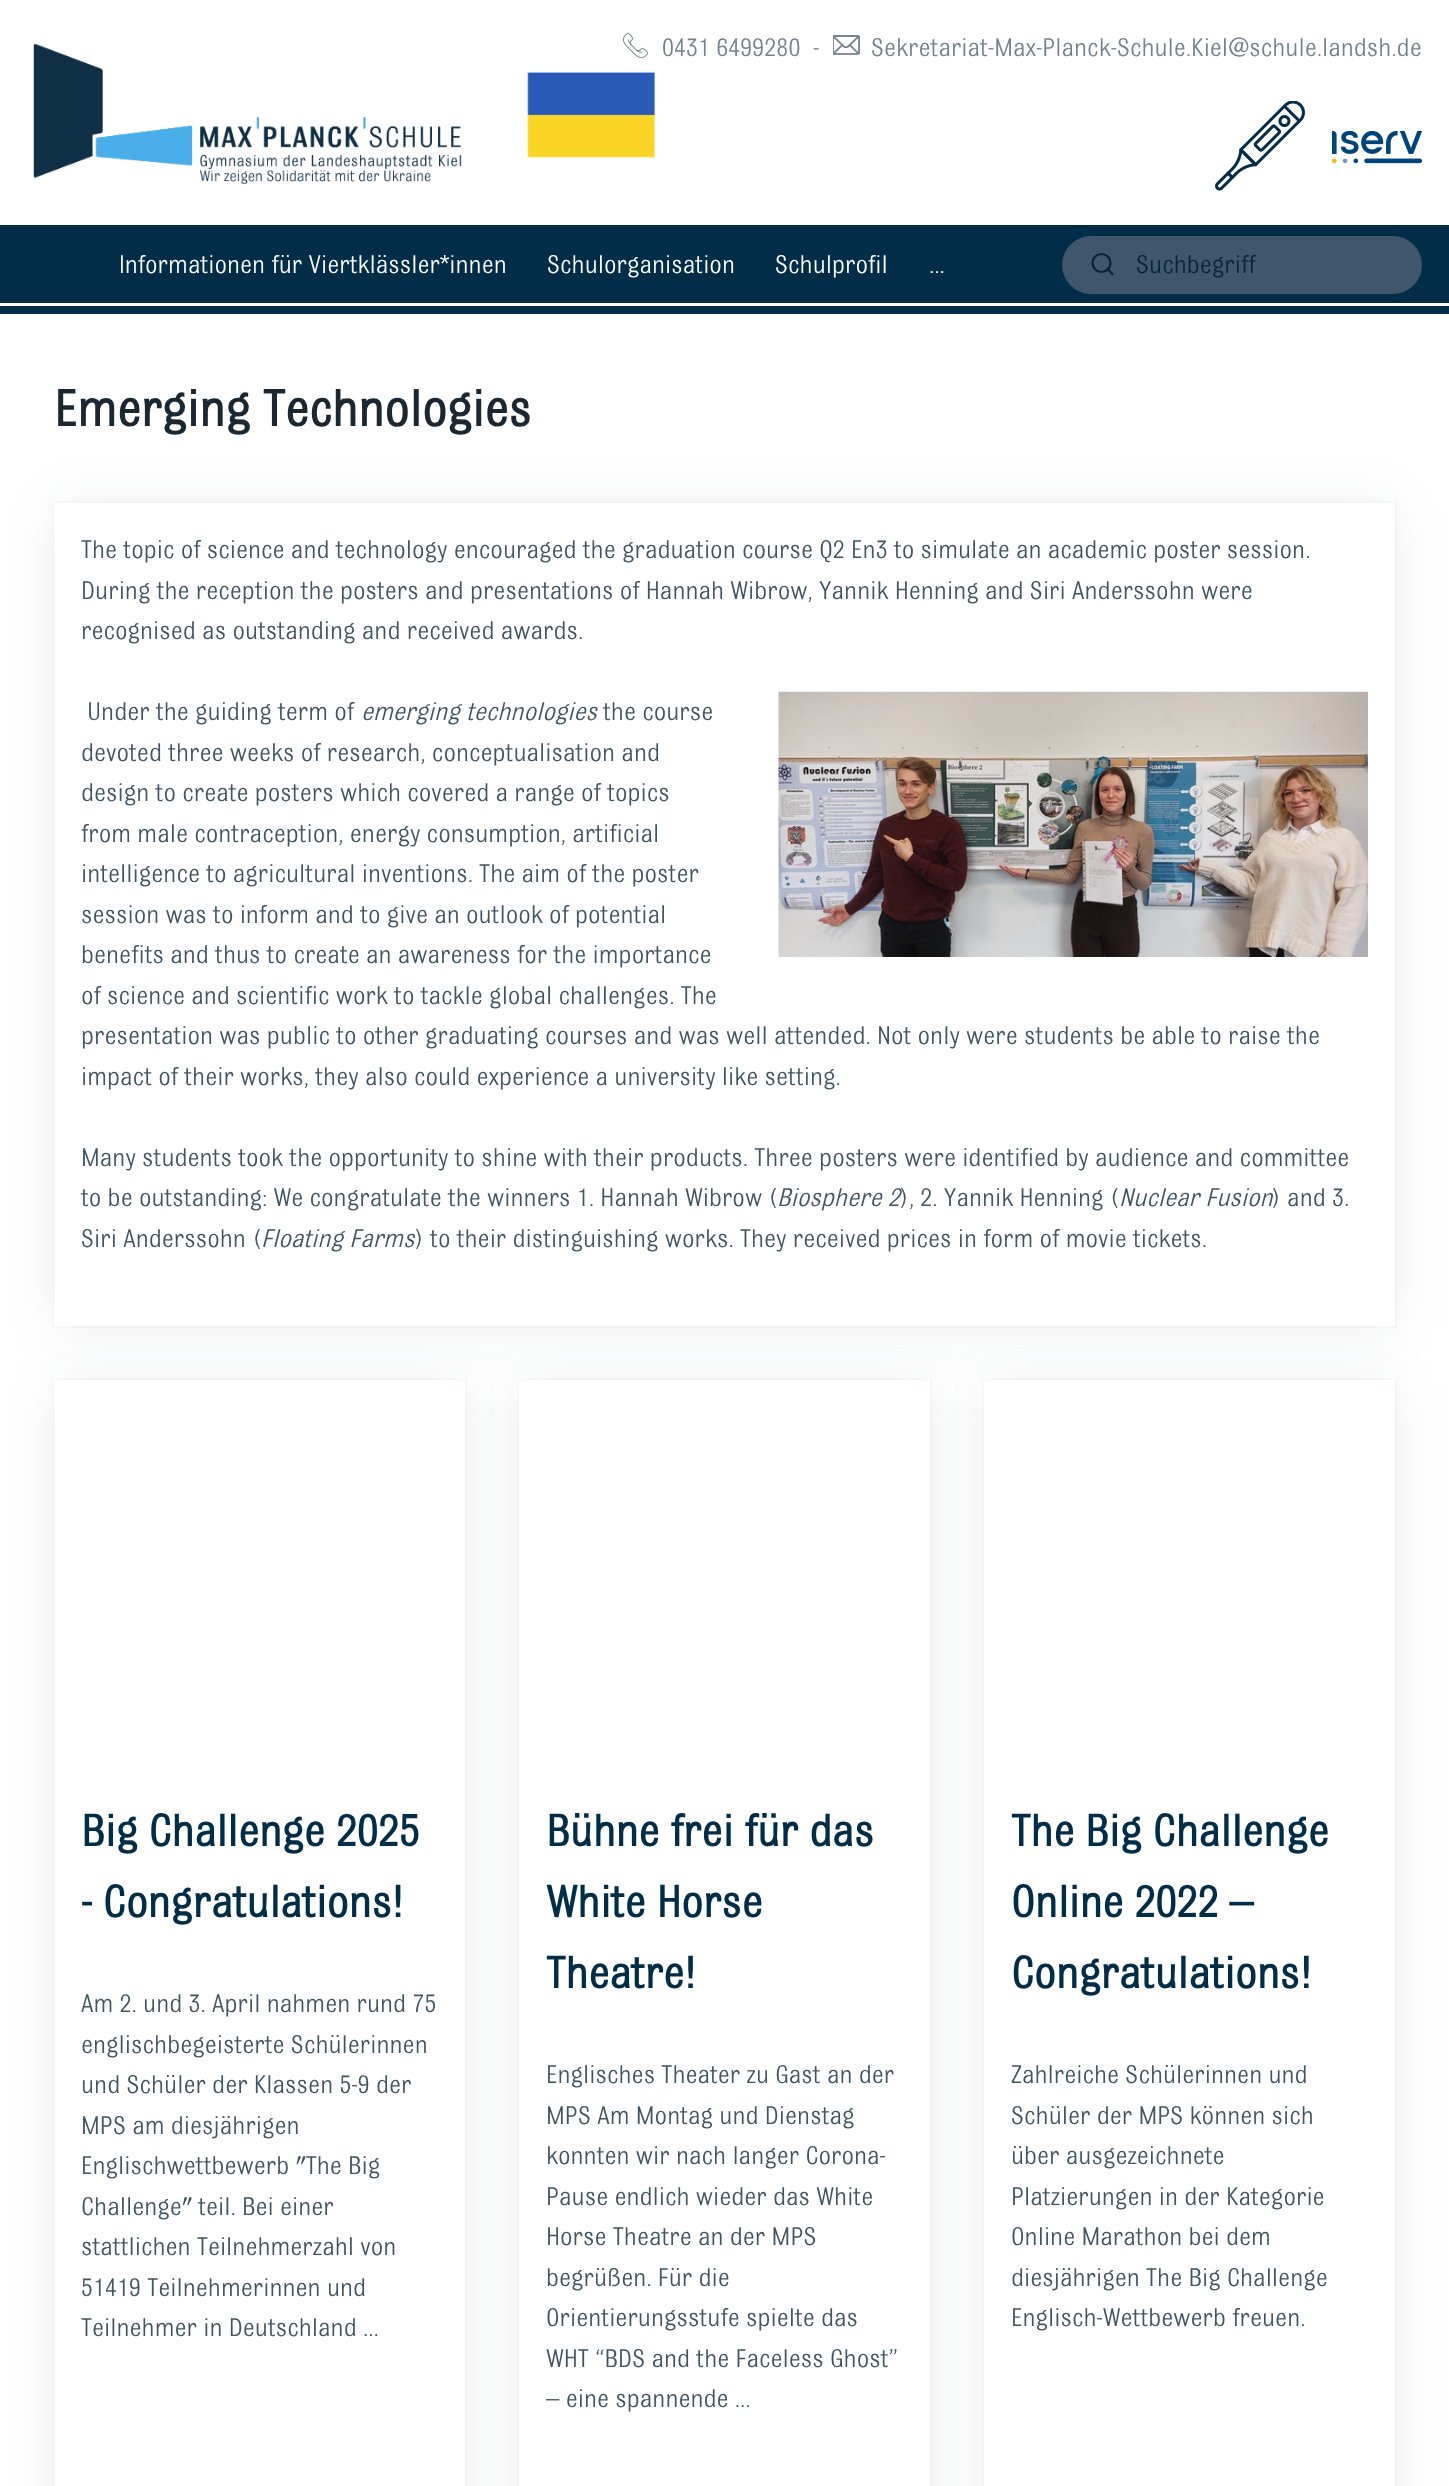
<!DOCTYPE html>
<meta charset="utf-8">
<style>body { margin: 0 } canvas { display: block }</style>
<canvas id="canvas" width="1449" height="2486"></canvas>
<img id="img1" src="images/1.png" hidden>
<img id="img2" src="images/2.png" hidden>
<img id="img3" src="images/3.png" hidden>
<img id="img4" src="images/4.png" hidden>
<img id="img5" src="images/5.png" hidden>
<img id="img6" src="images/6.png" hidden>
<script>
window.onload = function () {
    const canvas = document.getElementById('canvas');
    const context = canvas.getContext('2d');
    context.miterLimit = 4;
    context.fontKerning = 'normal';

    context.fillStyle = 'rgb(255, 255, 255)';
    context.fillRect(0, 0, 1449, 2486);
    context.drawImage(document.getElementById('img1'), 33, 44, 623, 141);
    context.drawImage(document.getElementById('img2'), 623, 33, 25, 25);
    context.drawImage(document.getElementById('img3'), 833, 35, 27, 20);
    context.drawImage(document.getElementById('img4'), 1215, 101, 90, 90);
    context.drawImage(document.getElementById('img5'), 1332, 131, 90, 33);
    context.fillStyle = 'rgb(1, 45, 72)';
    context.fillRect(0, 225, 1449, 78);
    context.fillStyle = 'rgb(63, 86, 109)';
    context.beginPath();
    context.roundRect(1062, 236, 360, 58, 29);
    context.fill();
    context.beginPath();
    context.arc(1101.5, 263, 9, 0, 2 * Math.PI);
    context.strokeStyle = 'rgb(8, 36, 56)';
    context.lineWidth = 2.2;
    context.stroke();
    context.beginPath();
    context.moveTo(1112.5, 274);
    context.lineTo(1107.5, 269);
    context.lineCap = 'round';
    context.lineJoin = 'round';
    context.stroke();
    context.fillStyle = 'rgb(1, 45, 72)';
    context.fillRect(0, 306, 1449, 8);
    context.strokeStyle = 'rgb(250, 250, 250)';
    context.lineWidth = 2;
    context.lineJoin = 'miter';
    context.strokeRect(54, 502, 1342, 825);
    context.fillStyle = 'rgba(27, 40, 50, 0.08)';
    context.filter = 'blur(27px)';
    context.beginPath();
    context.rect(54, 506, 1341, 823);
    context.fill();
    context.filter = 'none';
    context.fillStyle = 'rgb(255, 255, 255)';
    context.fillRect(54, 503, 1341, 823);
    context.drawImage(document.getElementById('img6'), 778, 691, 590, 266);
    context.strokeStyle = 'rgb(249, 250, 250)';
    context.strokeRect(54, 1380, 412, 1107);
    context.fillStyle = 'rgba(27, 40, 50, 0.08)';
    context.filter = 'blur(27px)';
    context.beginPath();
    context.rect(54, 1383, 411, 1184);
    context.fill();
    context.filter = 'none';
    context.fillStyle = 'rgb(255, 255, 255)';
    context.fillRect(54, 1380, 411, 1106);
    context.strokeRect(519, 1380, 412, 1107);
    context.fillStyle = 'rgba(27, 40, 50, 0.08)';
    context.filter = 'blur(27px)';
    context.beginPath();
    context.rect(519, 1383, 411, 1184);
    context.fill();
    context.filter = 'none';
    context.fillStyle = 'rgb(255, 255, 255)';
    context.fillRect(519, 1380, 411, 1106);
    context.strokeRect(984, 1380, 412, 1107);
    context.fillStyle = 'rgba(27, 40, 50, 0.08)';
    context.filter = 'blur(27px)';
    context.beginPath();
    context.rect(984, 1383, 411, 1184);
    context.fill();
    context.filter = 'none';
    context.fillStyle = 'rgb(255, 255, 255)';
    context.fillRect(984, 1380, 411, 1106);
    context.font = '27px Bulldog';
    context.fillStyle = 'rgb(115, 130, 140)';
    context.fillText('0431 6499280', 662, 56);
    context.fillText('-', 813, 56);
    context.fillText('Sekretariat-Max-Planck-Schule.Kiel@schule.landsh.de', 871, 56);
    context.fillStyle = 'rgb(255, 255, 255)';
    context.fillText('Informationen für Viertklässler*innen', 119, 273);
    context.fillText('Schulorganisation', 547, 273);
    context.fillText('Schulprofil', 775, 273);
    context.fillText('...', 929, 273);
    context.fillStyle = 'rgb(8, 36, 56)';
    context.fillText('Suchbegriff', 1136, 273);
    context.font = 'bold 54px Bulldog';
    context.fillStyle = 'rgb(27, 40, 50)';
    context.fillText('Emerging Technologies', 54, 426);
    context.font = '27px Bulldog';
    context.fillStyle = 'rgb(65, 84, 98)';
    context.fillText('The topic of science and technology encouraged the graduation course Q2 En3 to simulate an academic poster session.', 81, 558);
    context.fillText('During the reception the posters and presentations of Hannah Wibrow, Yannik Henning and Siri Anderssohn were', 81, 599);
    context.fillText('recognised as outstanding and received awards.', 81, 639);
    context.fillText('Under the guiding term of', 87, 720);
    context.font = 'italic 27px Bulldog';
    context.fillText('emerging technologies', 361, 720);
    context.font = '27px Bulldog';
    context.fillText('the course', 603, 720);
    context.fillText('devoted three weeks of research, conceptualisation and', 81, 761);
    context.fillText('design to create posters which covered a range of topics', 81, 801);
    context.fillText('from male contraception, energy consumption, artificial', 81, 842);
    context.fillText('intelligence to agricultural inventions. The aim of the poster', 81, 882);
    context.fillText('session was to inform and to give an outlook of potential', 81, 923);
    context.fillText('benefits and thus to create an awareness for the importance', 81, 963);
    context.fillText('of science and scientific work to tackle global challenges. The', 81, 1004);
    context.fillText('presentation was public to other graduating courses and was well attended. Not only were students be able to raise the', 81, 1044);
    context.fillText('impact of their works, they also could experience a university like setting.', 81, 1085);
    context.fillText('Many students took the opportunity to shine with their products. Three posters were identified by audience and committee', 81, 1166);
    context.fillText('to be outstanding: We congratulate the winners 1. Hannah Wibrow (', 81, 1206);
    context.font = 'italic 27px Bulldog';
    context.fillText('Biosphere 2', 777, 1206);
    context.font = '27px Bulldog';
    context.fillText('), 2. Yannik Henning (', 900, 1206);
    context.font = 'italic 27px Bulldog';
    context.fillText('Nuclear Fusion', 1119, 1206);
    context.font = '27px Bulldog';
    context.fillText(') and 3.', 1272, 1206);
    context.fillText('Siri Anderssohn (', 81, 1247);
    context.font = 'italic 27px Bulldog';
    context.fillText('Floating Farms', 261, 1247);
    context.font = '27px Bulldog';
    context.fillText(') to their distinguishing works. They received prices in form of movie tickets.', 415, 1247);
    context.font = 'bold 47.25px Bulldog';
    context.fillStyle = 'rgb(1, 45, 72)';
    context.fillText('Big Challenge 2025', 81, 1846);
    context.fillText('- Congratulations!', 81, 1917);
    context.font = '27px Bulldog';
    context.fillStyle = 'rgb(65, 84, 98)';
    context.fillText('Am 2. und 3. April nahmen rund 75', 81, 2012);
    context.fillText('englischbegeisterte Schülerinnen', 81, 2053);
    context.fillText('und Schüler der Klassen 5-9 der', 81, 2093);
    context.fillText('MPS am diesjährigen', 81, 2134);
    context.fillText('Englischwettbewerb "The Big', 81, 2174);
    context.fillText('Challenge" teil. Bei einer', 81, 2215);
    context.fillText('stattlichen Teilnehmerzahl von', 81, 2255);
    context.fillText('51419 Teilnehmerinnen und', 81, 2296);
    context.fillText('Teilnehmer in Deutschland ...', 81, 2336);
    context.font = 'bold 47.25px Bulldog';
    context.fillStyle = 'rgb(1, 45, 72)';
    context.fillText('Bühne frei für das', 546, 1846);
    context.fillText('White Horse', 546, 1917);
    context.fillText('Theatre!', 546, 1988);
    context.font = '27px Bulldog';
    context.fillStyle = 'rgb(65, 84, 98)';
    context.fillText('Englisches Theater zu Gast an der', 546, 2083);
    context.fillText('MPS Am Montag und Dienstag', 546, 2124);
    context.fillText('konnten wir nach langer Corona-', 546, 2164);
    context.fillText('Pause endlich wieder das White', 546, 2205);
    context.fillText('Horse Theatre an der MPS', 546, 2245);
    context.fillText('begrüßen. Für die', 546, 2286);
    context.fillText('Orientierungsstufe spielte das', 546, 2326);
    context.fillText('WHT “BDS and the Faceless Ghost”', 546, 2367);
    context.fillText('– eine spannende ...', 546, 2407);
    context.font = 'bold 47.25px Bulldog';
    context.fillStyle = 'rgb(1, 45, 72)';
    context.fillText('The Big Challenge', 1011, 1846);
    context.fillText('Online 2022 –', 1011, 1917);
    context.fillText('Congratulations!', 1011, 1988);
    context.font = '27px Bulldog';
    context.fillStyle = 'rgb(65, 84, 98)';
    context.fillText('Zahlreiche Schülerinnen und', 1011, 2083);
    context.fillText('Schüler der MPS können sich', 1011, 2124);
    context.fillText('über ausgezeichnete', 1011, 2164);
    context.fillText('Platzierungen in der Kategorie', 1011, 2205);
    context.fillText('Online Marathon bei dem', 1011, 2245);
    context.fillText('diesjährigen The Big Challenge', 1011, 2286);
    context.fillText('Englisch-Wettbewerb freuen.', 1011, 2326);
};
</script>
